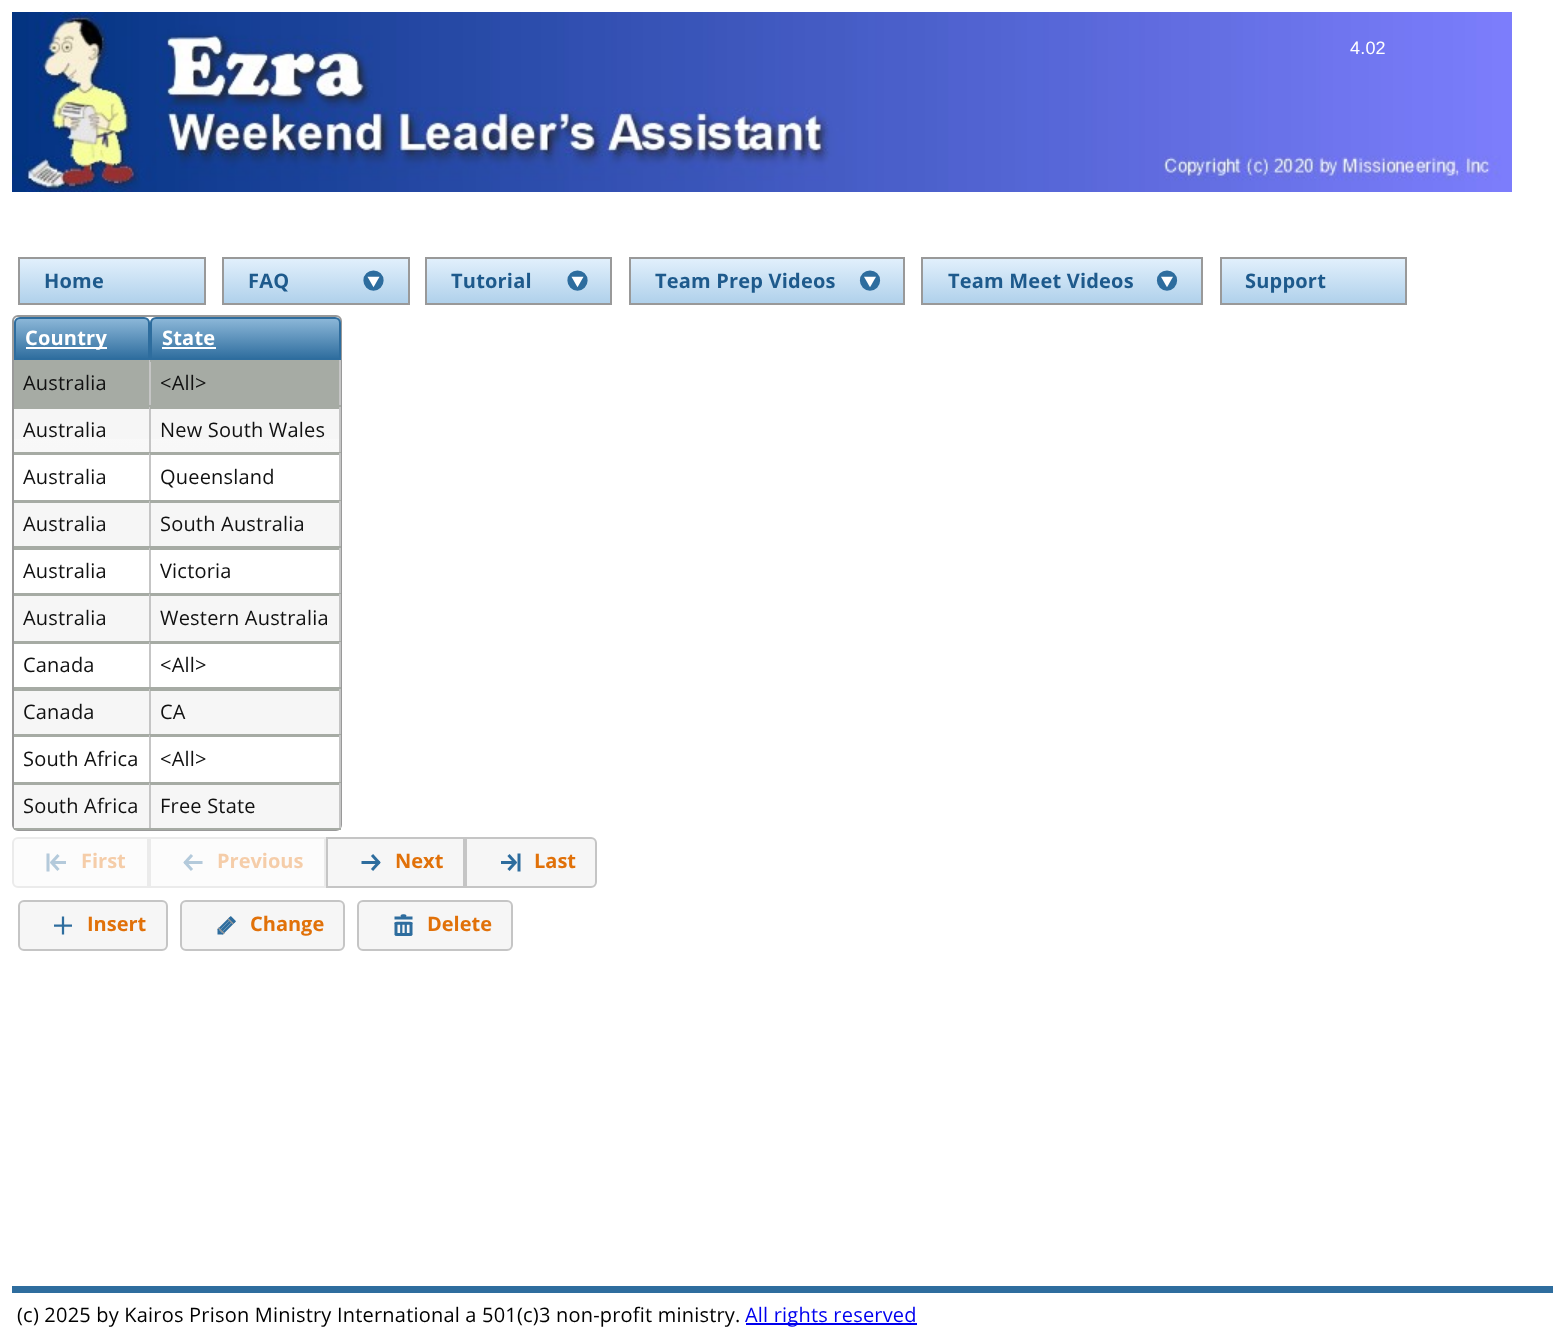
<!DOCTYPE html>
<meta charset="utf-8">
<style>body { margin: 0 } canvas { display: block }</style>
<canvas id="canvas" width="1564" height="1330"></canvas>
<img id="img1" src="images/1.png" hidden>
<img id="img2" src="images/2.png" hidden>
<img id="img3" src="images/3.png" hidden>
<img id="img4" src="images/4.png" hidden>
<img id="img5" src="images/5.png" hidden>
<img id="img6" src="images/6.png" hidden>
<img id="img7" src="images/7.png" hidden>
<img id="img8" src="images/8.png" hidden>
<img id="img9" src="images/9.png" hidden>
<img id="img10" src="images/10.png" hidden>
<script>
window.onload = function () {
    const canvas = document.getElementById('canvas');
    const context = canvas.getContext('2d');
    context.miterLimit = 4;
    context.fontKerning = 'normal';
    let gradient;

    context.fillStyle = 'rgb(255, 255, 255)';
    context.fillRect(0, 0, 1564, 1330);
    context.drawImage(document.getElementById('img1'), 12, 12, 1500, 180);
    gradient = context.createLinearGradient(112, 303, 112, 258);
    gradient.addColorStop(0, 'rgb(176, 209, 235)');
    gradient.addColorStop(1, 'rgb(226, 240, 252)');
    context.fillStyle = gradient;
    context.fillRect(20, 259, 184, 44);
    context.strokeStyle = 'rgb(153, 153, 153)';
    context.lineWidth = 2;
    context.strokeRect(19, 258, 186, 46);
    gradient = context.createLinearGradient(316, 303, 316, 258);
    gradient.addColorStop(0, 'rgb(176, 209, 235)');
    gradient.addColorStop(1, 'rgb(226, 240, 252)');
    context.fillStyle = gradient;
    context.fillRect(224, 259, 184, 44);
    context.strokeRect(223, 258, 186, 46);
    context.drawImage(document.getElementById('img2'), 363, 270, 21, 21);
    gradient = context.createLinearGradient(518, 303, 518, 258);
    gradient.addColorStop(0, 'rgb(176, 209, 235)');
    gradient.addColorStop(1, 'rgb(226, 240, 252)');
    context.fillStyle = gradient;
    context.fillRect(427, 259, 183, 44);
    context.strokeRect(426, 258, 185, 46);
    context.drawImage(document.getElementById('img2'), 567, 270, 21, 21);
    gradient = context.createLinearGradient(767, 303, 767, 258);
    gradient.addColorStop(0, 'rgb(176, 209, 235)');
    gradient.addColorStop(1, 'rgb(226, 240, 252)');
    context.fillStyle = gradient;
    context.fillRect(631, 259, 272, 44);
    context.strokeRect(630, 258, 274, 46);
    context.drawImage(document.getElementById('img3'), 859, 270, 22, 21);
    gradient = context.createLinearGradient(1062, 303, 1062, 258);
    gradient.addColorStop(0, 'rgb(176, 209, 235)');
    gradient.addColorStop(1, 'rgb(226, 240, 252)');
    context.fillStyle = gradient;
    context.fillRect(923, 259, 278, 44);
    context.strokeRect(922, 258, 280, 46);
    context.drawImage(document.getElementById('img3'), 1156, 270, 22, 21);
    gradient = context.createLinearGradient(1313, 303, 1313, 258);
    gradient.addColorStop(0, 'rgb(176, 209, 235)');
    gradient.addColorStop(1, 'rgb(226, 240, 252)');
    context.fillStyle = gradient;
    context.fillRect(1222, 259, 183, 44);
    context.strokeRect(1221, 258, 185, 46);
    context.save();
    context.beginPath();
    context.roundRect(12, 315, 330, 516, 6);
    context.clip();
    gradient = context.createLinearGradient(177, 830, 177, 317);
    gradient.addColorStop(0, 'rgb(246, 246, 246)');
    gradient.addColorStop(0.67, 'rgb(246, 246, 246)');
    gradient.addColorStop(1, 'rgb(255, 255, 255)');
    context.fillStyle = gradient;
    context.fillRect(12, 317, 330, 513);
    context.restore();
    context.beginPath();
    context.roundRect(13, 316, 328, 514, 5);
    context.stroke();
    context.save();
    context.beginPath();
    context.roundRect(14, 317, 136, 43, [6, 6, 0, 0]);
    context.clip();
    gradient = context.createLinearGradient(82, 359, 82, 318);
    gradient.addColorStop(0, 'rgb(46, 109, 158)');
    gradient.addColorStop(1, 'rgb(141, 184, 217)');
    context.fillStyle = gradient;
    context.fillRect(14, 318, 136, 40);
    context.restore();
    context.beginPath();
    context.roundRect(15, 318, 134, 41, [5, 5, 0, 0]);
    context.strokeStyle = 'rgb(46, 109, 158)';
    context.stroke();
    context.fillStyle = 'rgb(255, 255, 255)';
    context.fillRect(26, 347, 81, 2);
    context.save();
    context.beginPath();
    context.roundRect(150, 317, 191, 43, [6, 6, 0, 0]);
    context.clip();
    gradient = context.createLinearGradient(245, 359, 245, 318);
    gradient.addColorStop(0, 'rgb(46, 109, 158)');
    gradient.addColorStop(1, 'rgb(141, 184, 217)');
    context.fillStyle = gradient;
    context.fillRect(150, 318, 191, 40);
    context.restore();
    context.beginPath();
    context.roundRect(151, 318, 189, 41, [5, 5, 0, 0]);
    context.stroke();
    context.fillRect(162, 347, 54, 2);
    context.fillStyle = 'rgb(166, 171, 164)';
    context.fillRect(14, 360, 325, 45);
    context.fillStyle = 'rgb(197, 197, 197)';
    context.fillRect(149, 360, 2, 47);
    context.fillStyle = 'rgb(166, 171, 164)';
    context.fillRect(14, 405, 136, 2);
    context.fillRect(150, 360, 191, 2);
    context.fillStyle = 'rgb(197, 197, 197)';
    context.fillRect(339, 360, 2, 47);
    context.fillStyle = 'rgb(166, 171, 164)';
    context.fillRect(150, 405, 191, 2);
    context.fillStyle = 'rgb(246, 246, 246)';
    context.fillRect(14, 409, 325, 30);
    context.fillStyle = 'rgb(166, 171, 164)';
    context.fillRect(14, 407, 135, 2);
    context.fillStyle = 'rgb(197, 197, 197)';
    context.fillRect(149, 407, 2, 46);
    context.fillStyle = 'rgb(166, 171, 164)';
    context.fillRect(14, 452, 136, 1);
    context.fillRect(150, 407, 191, 2);
    context.fillStyle = 'rgb(197, 197, 197)';
    context.fillRect(339, 407, 2, 46);
    context.fillStyle = 'rgb(166, 171, 164)';
    context.fillRect(150, 452, 191, 1);
    context.fillStyle = 'rgb(255, 255, 255)';
    context.fillRect(14, 455, 325, 45);
    context.fillStyle = 'rgb(166, 171, 164)';
    context.fillRect(14, 453, 135, 2);
    context.fillStyle = 'rgb(197, 197, 197)';
    context.fillRect(149, 453, 2, 95);
    context.fillStyle = 'rgb(166, 171, 164)';
    context.fillRect(14, 500, 136, 1);
    context.fillRect(150, 453, 191, 2);
    context.fillStyle = 'rgb(197, 197, 197)';
    context.fillRect(339, 453, 2, 48);
    context.fillStyle = 'rgb(166, 171, 164)';
    context.fillRect(150, 500, 191, 3);
    context.fillRect(14, 501, 135, 2);
    context.fillRect(14, 546, 136, 2);
    context.fillStyle = 'rgb(197, 197, 197)';
    context.fillRect(339, 501, 2, 47);
    context.fillStyle = 'rgb(166, 171, 164)';
    context.fillRect(150, 546, 191, 2);
    context.fillStyle = 'rgb(255, 255, 255)';
    context.fillRect(14, 550, 325, 43);
    context.fillStyle = 'rgb(166, 171, 164)';
    context.fillRect(14, 548, 135, 2);
    context.fillStyle = 'rgb(197, 197, 197)';
    context.fillRect(149, 548, 2, 94);
    context.fillStyle = 'rgb(166, 171, 164)';
    context.fillRect(14, 593, 136, 1);
    context.fillRect(150, 548, 191, 2);
    context.fillStyle = 'rgb(197, 197, 197)';
    context.fillRect(339, 548, 2, 46);
    context.fillStyle = 'rgb(166, 171, 164)';
    context.fillRect(150, 593, 191, 3);
    context.fillRect(14, 594, 135, 2);
    context.fillRect(14, 641, 136, 1);
    context.fillStyle = 'rgb(197, 197, 197)';
    context.fillRect(339, 594, 2, 48);
    context.fillStyle = 'rgb(166, 171, 164)';
    context.fillRect(150, 641, 191, 1);
    context.fillStyle = 'rgb(255, 255, 255)';
    context.fillRect(14, 644, 325, 43);
    context.fillStyle = 'rgb(166, 171, 164)';
    context.fillRect(14, 642, 135, 2);
    context.fillStyle = 'rgb(197, 197, 197)';
    context.fillRect(149, 642, 2, 93);
    context.fillStyle = 'rgb(166, 171, 164)';
    context.fillRect(14, 687, 136, 2);
    context.fillRect(150, 642, 191, 2);
    context.fillStyle = 'rgb(197, 197, 197)';
    context.fillRect(339, 642, 2, 47);
    context.fillStyle = 'rgb(166, 171, 164)';
    context.fillRect(150, 687, 191, 4);
    context.fillRect(14, 689, 135, 2);
    context.fillRect(14, 734, 136, 1);
    context.fillStyle = 'rgb(197, 197, 197)';
    context.fillRect(339, 689, 2, 46);
    context.fillStyle = 'rgb(166, 171, 164)';
    context.fillRect(150, 734, 191, 1);
    context.fillStyle = 'rgb(255, 255, 255)';
    context.fillRect(14, 737, 325, 45);
    context.fillStyle = 'rgb(166, 171, 164)';
    context.fillRect(14, 735, 135, 2);
    context.fillStyle = 'rgb(197, 197, 197)';
    context.fillRect(149, 735, 2, 48);
    context.fillStyle = 'rgb(166, 171, 164)';
    context.fillRect(14, 782, 136, 1);
    context.fillRect(150, 735, 191, 2);
    context.fillStyle = 'rgb(197, 197, 197)';
    context.fillRect(339, 735, 2, 48);
    context.fillStyle = 'rgb(166, 171, 164)';
    context.fillRect(150, 782, 191, 1);
    context.fillStyle = 'rgb(246, 246, 246)';
    context.fillRect(14, 825, 325, 3);
    context.fillStyle = 'rgb(166, 171, 164)';
    context.fillRect(14, 783, 135, 2);
    context.fillStyle = 'rgb(197, 197, 197)';
    context.fillRect(149, 783, 2, 47);
    context.fillStyle = 'rgb(166, 171, 164)';
    context.fillRect(14, 828, 136, 2);
    context.fillRect(150, 783, 191, 2);
    context.fillStyle = 'rgb(197, 197, 197)';
    context.fillRect(339, 783, 2, 47);
    context.fillStyle = 'rgb(166, 171, 164)';
    context.fillRect(150, 828, 191, 2);
    context.fillStyle = 'rgb(252, 252, 252)';
    context.beginPath();
    context.roundRect(13, 838, 135, 49, [5, 0, 0, 5]);
    context.fill();
    context.strokeStyle = 'rgb(235, 235, 235)';
    context.stroke();
    context.drawImage(document.getElementById('img4'), 46, 853, 20, 19);
    context.beginPath();
    context.rect(150, 838, 175, 49);
    context.fill();
    context.stroke();
    context.drawImage(document.getElementById('img5'), 183, 854, 20, 17);
    context.fillStyle = 'rgb(246, 246, 246)';
    context.beginPath();
    context.rect(327, 838, 137, 49);
    context.fill();
    context.strokeStyle = 'rgb(197, 197, 197)';
    context.stroke();
    context.drawImage(document.getElementById('img6'), 361, 854, 20, 17);
    context.beginPath();
    context.roundRect(466, 838, 130, 49, [0, 5, 5, 0]);
    context.fill();
    context.stroke();
    context.drawImage(document.getElementById('img7'), 501, 853, 20, 19);
    context.beginPath();
    context.roundRect(19, 901, 148, 49, 5);
    context.fill();
    context.stroke();
    context.drawImage(document.getElementById('img8'), 54, 916, 18, 19);
    context.beginPath();
    context.roundRect(181, 901, 163, 49, 5);
    context.fill();
    context.stroke();
    context.drawImage(document.getElementById('img9'), 217, 916, 19, 19);
    context.beginPath();
    context.roundRect(358, 901, 154, 49, 5);
    context.fill();
    context.stroke();
    context.drawImage(document.getElementById('img10'), 394, 914, 19, 22);
    context.fillStyle = 'rgb(46, 109, 158)';
    context.fillRect(12, 1286, 1541, 7);
    context.fillStyle = 'rgb(0, 0, 238)';
    context.fillRect(746, 1323, 171, 2);
    context.letterSpacing = '0.2px';
    context.font = '18px Liberation Sans';
    context.fillStyle = 'rgb(255, 255, 255)';
    context.fillText('4.02', 1350, 54);
    context.font = 'bold 20px Open Sans';
    context.fillStyle = 'rgb(30, 90, 140)';
    context.fillText('Home', 44, 288);
    context.fillText('FAQ', 248, 288);
    context.fillText('Tutorial', 451, 288);
    context.fillText('Team Prep Videos', 655, 288);
    context.fillText('Team Meet Videos', 948, 288);
    context.fillText('Support', 1245, 288);
    context.fillStyle = 'rgb(255, 255, 255)';
    context.fillText('Country', 25, 345);
    context.fillText('State', 162, 345);
    context.font = '20px Open Sans';
    context.fillStyle = 'rgb(17, 17, 17)';
    context.fillText('Australia', 23, 390);
    context.fillText('<All>', 160, 390);
    context.fillText('Australia', 23, 437);
    context.fillText('New South Wales', 160, 437);
    context.fillText('Australia', 23, 484);
    context.fillText('Queensland', 160, 484);
    context.fillText('Australia', 23, 531);
    context.fillText('South Australia', 160, 531);
    context.fillText('Australia', 23, 578);
    context.fillText('Victoria', 160, 578);
    context.fillText('Australia', 23, 625);
    context.fillText('Western Australia', 160, 625);
    context.fillText('Canada', 23, 672);
    context.fillText('<All>', 160, 672);
    context.fillText('Canada', 23, 719);
    context.fillText('CA', 160, 719);
    context.fillText('South Africa', 23, 766);
    context.fillText('<All>', 160, 766);
    context.fillText('South Africa', 23, 813);
    context.fillText('Free State', 160, 813);
    context.letterSpacing = '0px';
    context.font = 'bold 20px Open Sans';
    context.fillStyle = 'rgb(245, 205, 169)';
    context.fillText('First', 81, 868);
    context.fillText('Previous', 217, 868);
    context.fillStyle = 'rgb(225, 113, 9)';
    context.fillText('Next', 395, 868);
    context.fillText('Last', 534, 868);
    context.fillText('Insert', 87, 931);
    context.fillText('Change', 250, 931);
    context.fillText('Delete', 427, 931);
    context.letterSpacing = '0.2px';
    context.font = '20px Open Sans';
    context.fillStyle = 'rgb(0, 0, 0)';
    context.fillText('(c) 2025 by Kairos Prison Ministry International a 501(c)3 non-profit ministry.', 17, 1322);
    context.fillStyle = 'rgb(0, 0, 238)';
    context.fillText('All rights reserved', 745, 1322);
};
</script>
